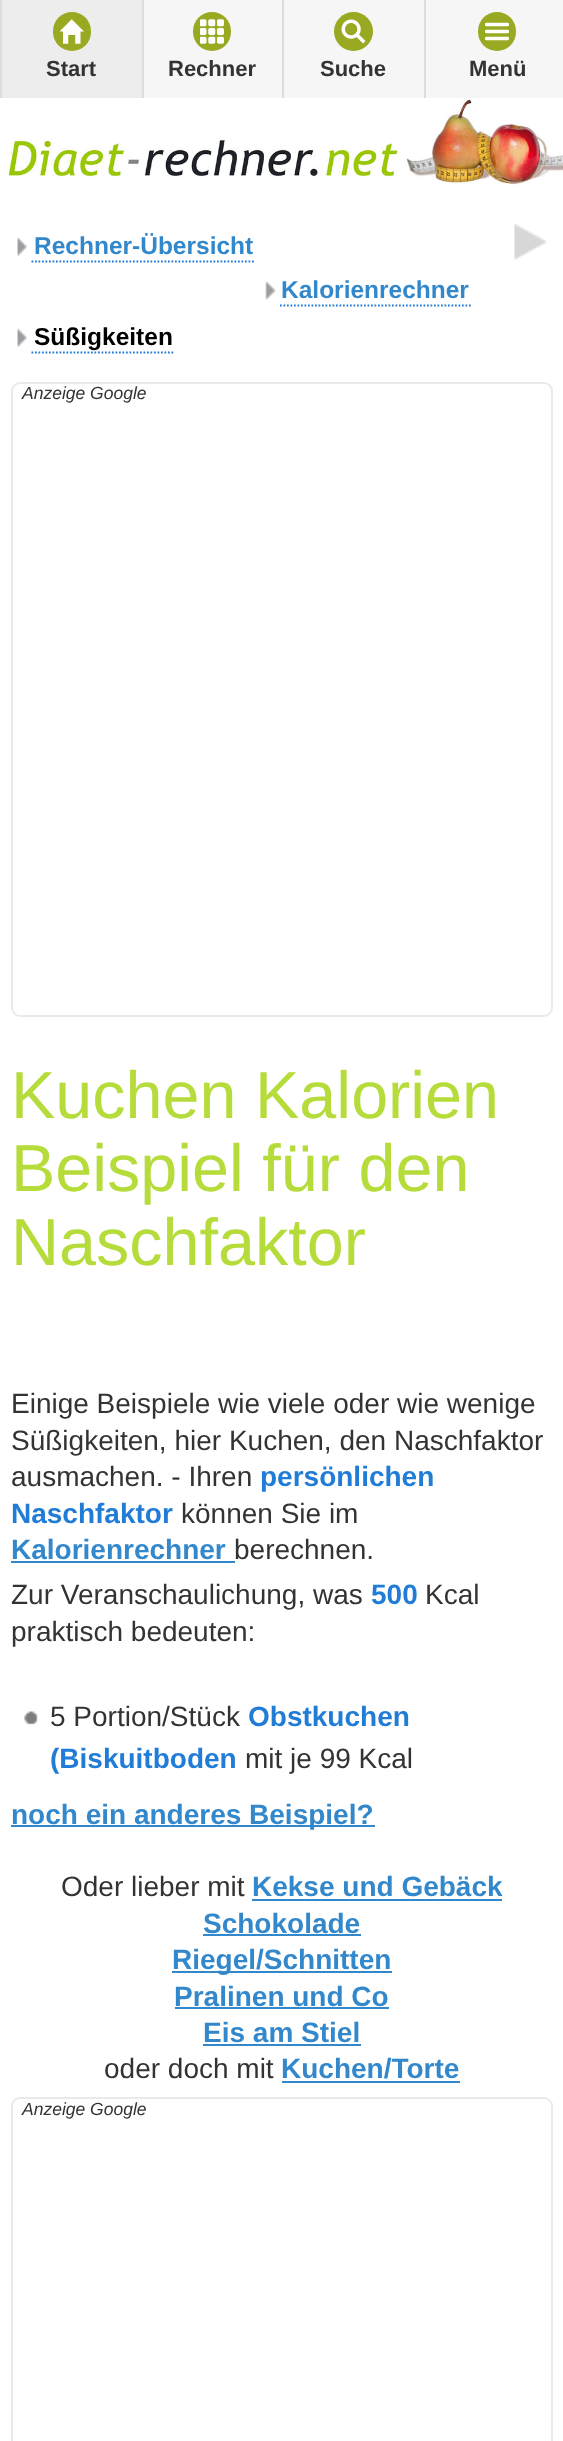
<!DOCTYPE html>
<meta charset="utf-8">
<style>body { margin: 0 } canvas { display: block }</style>
<canvas id="canvas" width="563" height="2441"></canvas>
<img id="img1" src="images/1.png" hidden>
<img id="img2" src="images/2.png" hidden>
<img id="img3" src="images/3.png" hidden>
<img id="img4" src="images/4.png" hidden>
<img id="img5" src="images/5.png" hidden>
<img id="img6" src="images/6.png" hidden>
<img id="img7" src="images/7.png" hidden>
<img id="img8" src="images/8.png" hidden>
<img id="img9" src="images/9.png" hidden>
<img id="img10" src="images/10.png" hidden>
<script>
window.onload = function () {
    const canvas = document.getElementById('canvas');
    const context = canvas.getContext('2d');
    context.miterLimit = 4;
    context.fontKerning = 'normal';

    context.fillStyle = 'rgb(255, 255, 255)';
    context.fillRect(0, 0, 563, 2441);
    context.fillStyle = 'rgb(237, 237, 237)';
    context.fillRect(2, 0, 140, 98);
    context.fillStyle = 'rgb(221, 221, 221)';
    context.fillRect(0, 0, 2, 98);
    context.fillStyle = 'rgb(153, 169, 34)';
    context.beginPath();
    context.roundRect(53, 12, 38, 39, 19);
    context.fill();
    context.drawImage(document.getElementById('img1'), 60, 19, 24, 25);
    context.fillStyle = 'rgb(246, 246, 246)';
    context.fillRect(144, 0, 138, 98);
    context.fillStyle = 'rgb(221, 221, 221)';
    context.fillRect(142, 0, 2, 98);
    context.fillStyle = 'rgb(153, 169, 34)';
    context.beginPath();
    context.roundRect(193, 12, 38, 39, 19);
    context.fill();
    context.drawImage(document.getElementById('img2'), 200, 19, 24, 25);
    context.fillStyle = 'rgb(246, 246, 246)';
    context.fillRect(284, 0, 140, 98);
    context.fillStyle = 'rgb(221, 221, 221)';
    context.fillRect(282, 0, 2, 98);
    context.fillStyle = 'rgb(153, 169, 34)';
    context.beginPath();
    context.arc(353.5, 31.5, 19.5, 0, 2 * Math.PI);
    context.fill();
    context.drawImage(document.getElementById('img3'), 341, 19, 25, 25);
    context.fillStyle = 'rgb(246, 246, 246)';
    context.fillRect(426, 0, 137, 98);
    context.fillStyle = 'rgb(221, 221, 221)';
    context.fillRect(424, 0, 2, 98);
    context.fillStyle = 'rgb(153, 169, 34)';
    context.beginPath();
    context.roundRect(478, 12, 38, 39, 19);
    context.fill();
    context.drawImage(document.getElementById('img4'), 485, 22, 24, 19);
    context.drawImage(document.getElementById('img5'), 5, 99, 558, 86);
    context.drawImage(document.getElementById('img6'), 17, 237, 10, 19);
    context.beginPath();
    context.moveTo(31.5, 261.5);
    context.lineTo(255.5, 261.5);
    context.strokeStyle = 'rgb(33, 124, 215)';
    context.lineWidth = 1.8;
    context.setLineDash([1.75, 1.75]);
    context.stroke();
    context.drawImage(document.getElementById('img7'), 265, 281, 11, 19);
    context.beginPath();
    context.moveTo(280, 305.5);
    context.lineTo(471, 305.5);
    context.stroke();
    context.drawImage(document.getElementById('img8'), 17, 328, 10, 19);
    context.beginPath();
    context.moveTo(31.5, 352.5);
    context.lineTo(175, 352.5);
    context.stroke();
    context.drawImage(document.getElementById('img9'), 514, 223, 33, 37);
    context.beginPath();
    context.roundRect(12, 383, 540, 633, 8);
    context.strokeStyle = 'rgb(234, 234, 234)';
    context.lineWidth = 2;
    context.setLineDash([]);
    context.stroke();
    context.fillStyle = 'rgb(51, 136, 204)';
    context.fillRect(11, 1561, 224, 2);
    context.drawImage(document.getElementById('img10'), 24, 1711, 14, 14);
    context.fillRect(11, 1825, 364, 2);
    context.fillRect(252, 1899, 250, 2);
    context.fillRect(203, 1934, 158, 2);
    context.fillRect(172, 1971, 220, 2);
    context.fillRect(175, 2007, 214, 2);
    context.fillRect(203, 2044, 158, 2);
    context.fillRect(282, 2081, 178, 2);
    context.beginPath();
    context.roundRect(12, 2098, 540, 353, 8);
    context.stroke();
    context.font = 'bold 22px Liberation Sans';
    context.fillStyle = 'rgb(51, 51, 51)';
    context.fillText('Start', 46, 76);
    context.fillText('Rechner', 168, 76);
    context.fillText('Suche', 320, 76);
    context.fillText('Menü', 469, 76);
    context.font = 'bold 24.5px Liberation Sans';
    context.fillStyle = 'rgb(51, 136, 204)';
    context.fillText('Rechner-Übersicht', 34, 254);
    context.fillText('Kalorienrechner', 281, 298);
    context.fillStyle = 'rgb(0, 0, 0)';
    context.fillText('Süßigkeiten', 34, 345);
    context.font = 'italic 17.5px Liberation Sans';
    context.fillStyle = 'rgb(51, 51, 51)';
    context.fillText('Anzeige Google', 22, 399);
    context.font = '66.5px Liberation Sans';
    context.fillStyle = 'rgb(182, 220, 59)';
    context.fillText('Kuchen Kalorien', 11, 1118);
    context.fillText('Beispiel für den', 11, 1191);
    context.fillText('Naschfaktor', 11, 1265);
    context.font = '28px Liberation Sans';
    context.fillStyle = 'rgb(51, 51, 51)';
    context.fillText('Einige Beispiele wie viele oder wie wenige', 11, 1413);
    context.fillText('Süßigkeiten, hier Kuchen, den Naschfaktor', 11, 1450);
    context.fillText('ausmachen. - Ihren', 11, 1486);
    context.font = 'bold 28px Liberation Sans';
    context.fillStyle = 'rgb(33, 124, 215)';
    context.fillText('persönlichen', 260, 1486);
    context.fillText('Naschfaktor', 11, 1523);
    context.font = '28px Liberation Sans';
    context.fillStyle = 'rgb(51, 51, 51)';
    context.fillText('können Sie im', 181, 1523);
    context.font = 'bold 28px Liberation Sans';
    context.fillStyle = 'rgb(51, 136, 204)';
    context.fillText('Kalorienrechner', 11, 1559);
    context.font = '28px Liberation Sans';
    context.fillStyle = 'rgb(51, 51, 51)';
    context.fillText('berechnen.', 234, 1559);
    context.fillText('Zur Veranschaulichung, was', 11, 1604);
    context.font = 'bold 28px Liberation Sans';
    context.fillStyle = 'rgb(33, 124, 215)';
    context.fillText('500', 371, 1604);
    context.font = '28px Liberation Sans';
    context.fillStyle = 'rgb(51, 51, 51)';
    context.fillText('Kcal', 425, 1604);
    context.fillText('praktisch bedeuten:', 11, 1641);
    context.fillText('5 Portion/Stück', 50, 1726);
    context.font = 'bold 28px Liberation Sans';
    context.fillStyle = 'rgb(33, 124, 215)';
    context.fillText('Obstkuchen', 248, 1726);
    context.fillText('(Biskuitboden', 50, 1768);
    context.font = '28px Liberation Sans';
    context.fillStyle = 'rgb(51, 51, 51)';
    context.fillText('mit je 99 Kcal', 245, 1768);
    context.font = 'bold 28px Liberation Sans';
    context.fillStyle = 'rgb(51, 136, 204)';
    context.fillText('noch ein anderes Beispiel?', 11, 1824);
    context.font = '28px Liberation Sans';
    context.fillStyle = 'rgb(51, 51, 51)';
    context.fillText('Oder lieber mit', 61, 1896);
    context.font = 'bold 28px Liberation Sans';
    context.fillStyle = 'rgb(51, 136, 204)';
    context.fillText('Kekse und Gebäck', 252, 1896);
    context.fillText('Schokolade', 203, 1933);
    context.fillText('Riegel/Schnitten', 172, 1969);
    context.fillText('Pralinen und Co', 174, 2006);
    context.fillText('Eis am Stiel', 203, 2042);
    context.font = '28px Liberation Sans';
    context.fillStyle = 'rgb(51, 51, 51)';
    context.fillText('oder doch mit', 104, 2078);
    context.font = 'bold 28px Liberation Sans';
    context.fillStyle = 'rgb(51, 136, 204)';
    context.fillText('Kuchen/Torte', 281, 2078);
    context.font = 'italic 17.5px Liberation Sans';
    context.fillStyle = 'rgb(51, 51, 51)';
    context.fillText('Anzeige Google', 22, 2115);
};
</script>
